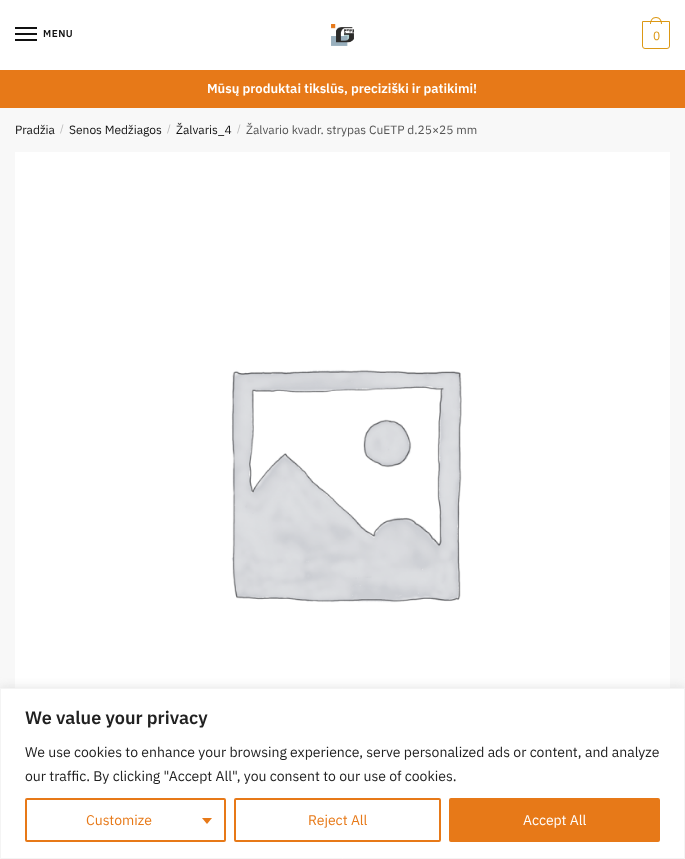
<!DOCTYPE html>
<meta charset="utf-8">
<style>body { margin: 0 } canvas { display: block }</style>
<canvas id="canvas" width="685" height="859"></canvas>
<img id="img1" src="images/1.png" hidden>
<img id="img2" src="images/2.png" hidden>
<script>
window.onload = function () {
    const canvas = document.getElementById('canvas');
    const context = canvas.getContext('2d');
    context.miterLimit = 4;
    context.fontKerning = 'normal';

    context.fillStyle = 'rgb(255, 255, 255)';
    context.fillRect(0, 0, 685, 859);
    context.fillStyle = 'rgb(17, 17, 17)';
    context.fillRect(15, 27, 22, 2);
    context.fillRect(15, 33, 22, 2);
    context.fillRect(15, 39, 22, 2);
    context.drawImage(document.getElementById('img1'), 331, 24, 23, 22);
    context.beginPath();
    context.roundRect(642.5, 21.5, 27, 27, [0, 0, 2.5, 2.5]);
    context.strokeStyle = 'rgb(220, 152, 20)';
    context.stroke();
    context.fillStyle = 'rgb(220, 152, 20)';
    context.beginPath();
    context.moveTo(656, 17);
    context.bezierCurveTo(660, 17, 662, 20.5, 662, 24);
    context.lineTo(650, 24);
    context.bezierCurveTo(650, 20.5, 652, 17, 656, 17);
    context.closePath();
    context.moveTo(656, 18);
    context.bezierCurveTo(659.5, 18, 661, 21, 661, 24);
    context.lineTo(651, 24);
    context.bezierCurveTo(651, 21, 652.5, 18, 656, 18);
    context.closePath();
    context.fill('evenodd');
    context.fillStyle = 'rgb(231, 121, 24)';
    context.fillRect(0, 70, 685, 38);
    context.fillStyle = 'rgb(248, 248, 248)';
    context.fillRect(0, 108, 685, 580);
    context.drawImage(document.getElementById('img2'), 15, 152, 655, 536);
    context.fillStyle = 'rgba(172, 171, 171, 0.3)';
    context.filter = 'blur(5px)';
    context.beginPath();
    context.rect(0, 687, 685, 171);
    context.fill();
    context.filter = 'none';
    context.fillStyle = 'rgb(255, 255, 255)';
    context.beginPath();
    context.rect(0.5, 688.5, 684, 170);
    context.fill();
    context.strokeStyle = 'rgb(244, 244, 244)';
    context.stroke();
    context.beginPath();
    context.roundRect(26, 799, 199, 42, 1);
    context.strokeStyle = 'rgb(231, 121, 24)';
    context.lineWidth = 2;
    context.stroke();
    context.fillStyle = 'rgb(231, 121, 24)';
    context.beginPath();
    context.moveTo(202, 818);
    context.lineTo(212, 818);
    context.lineTo(207, 824);
    context.closePath();
    context.fill();
    context.beginPath();
    context.roundRect(235, 799, 205, 42, 1);
    context.stroke();
    context.beginPath();
    context.roundRect(450, 799, 209, 42, 1);
    context.fill();
    context.stroke();
    context.letterSpacing = '0.5px';
    context.font = '600 10px IBM Plex Sans';
    context.fillStyle = 'rgb(17, 17, 17)';
    context.fillText('MENU', 43, 37);
    context.letterSpacing = '-1px';
    context.font = '12px IBM Plex Sans';
    context.fillStyle = 'rgb(220, 152, 20)';
    context.fillText('0', 653, 40);
    context.letterSpacing = '0px';
    context.font = '600 13px IBM Plex Sans';
    context.fillStyle = 'rgb(255, 255, 255)';
    context.fillText('Mūsų produktai tikslūs, preciziški ir patikimi!', 207, 93);
    context.font = '12px IBM Plex Sans';
    context.fillStyle = 'rgb(17, 17, 17)';
    context.fillText('Pradžia', 15, 134);
    context.font = '10px IBM Plex Sans';
    context.fillStyle = 'rgb(183, 183, 183)';
    context.fillText('/', 60, 132);
    context.font = '12px IBM Plex Sans';
    context.fillStyle = 'rgb(17, 17, 17)';
    context.fillText('Senos Medžiagos', 69, 134);
    context.font = '10px IBM Plex Sans';
    context.fillStyle = 'rgb(183, 183, 183)';
    context.fillText('/', 167, 132);
    context.font = '12px IBM Plex Sans';
    context.fillStyle = 'rgb(17, 17, 17)';
    context.fillText('Žalvaris_4', 176, 134);
    context.font = '10px IBM Plex Sans';
    context.fillStyle = 'rgb(183, 183, 183)';
    context.fillText('/', 237, 132);
    context.font = '12px IBM Plex Sans';
    context.fillStyle = 'rgb(85, 85, 85)';
    context.fillText('Žalvario kvadr. strypas CuETP d.25×25 mm', 246, 134);
    context.font = '600 18px IBM Plex Sans';
    context.fillStyle = 'rgb(33, 33, 33)';
    context.fillText('We value your privacy', 25, 724);
    context.font = '14px IBM Plex Sans';
    context.fillText('We use cookies to enhance your browsing experience, serve personalized ads or content, and analyze', 25, 757);
    context.fillText('our traffic. By clicking "Accept All", you consent to our use of cookies.', 25, 781);
    context.fillStyle = 'rgb(231, 121, 24)';
    context.fillText('Customize', 86, 825);
    context.fillText('Reject All', 308, 825);
    context.fillStyle = 'rgb(255, 255, 255)';
    context.fillText('Accept All', 523, 825);
};
</script>
